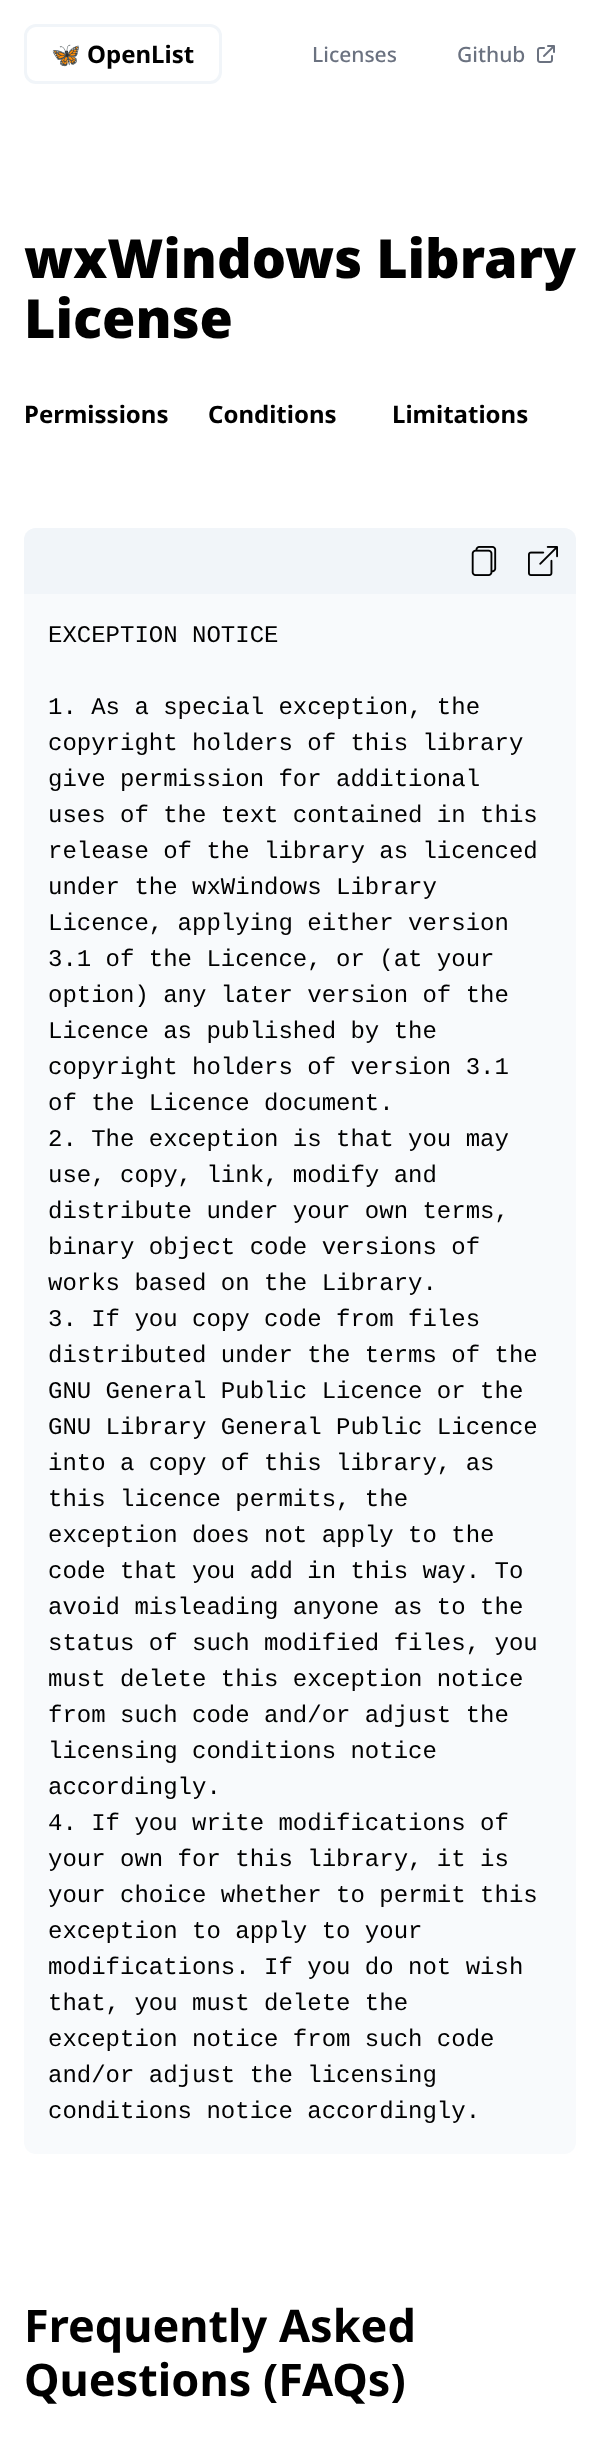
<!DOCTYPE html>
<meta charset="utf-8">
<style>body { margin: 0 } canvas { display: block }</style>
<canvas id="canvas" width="599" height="2439"></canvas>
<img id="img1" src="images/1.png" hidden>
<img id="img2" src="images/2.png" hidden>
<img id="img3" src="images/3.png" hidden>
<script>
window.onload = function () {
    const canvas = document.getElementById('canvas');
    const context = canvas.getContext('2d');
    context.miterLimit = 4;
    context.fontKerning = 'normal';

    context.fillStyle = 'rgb(255, 255, 255)';
    context.fillRect(0, 0, 599, 2439);
    context.beginPath();
    context.roundRect(25.5, 25.5, 195, 57, 10.5);
    context.strokeStyle = 'rgb(241, 245, 249)';
    context.lineWidth = 3;
    context.stroke();
    context.drawImage(document.getElementById('img1'), 537, 45, 18, 18);
    context.fillStyle = 'rgb(248, 250, 252)';
    context.beginPath();
    context.roundRect(24, 528, 552, 1626, 12);
    context.fill();
    context.fillStyle = 'rgb(241, 245, 249)';
    context.beginPath();
    context.roundRect(24, 528, 552, 66, [12, 12, 0, 0]);
    context.fill();
    context.drawImage(document.getElementById('img2'), 471, 546, 26, 30);
    context.drawImage(document.getElementById('img3'), 528, 546, 30, 30);
    context.font = 'bold 24px Noto Color Emoji';
    context.fillStyle = 'rgb(0, 0, 0)';
    context.fillText('🦋', 51, 63);
    context.font = 'bold 24px Noto Sans';
    context.fillText('OpenList', 87, 63);
    context.font = '500 21px Noto Sans';
    context.fillStyle = 'rgb(107, 114, 128)';
    context.fillText('Licenses', 312, 62);
    context.fillText('Github', 457, 62);
    context.font = '900 54px Noto Sans';
    context.fillStyle = 'rgb(0, 0, 0)';
    context.fillText('wxWindows Library', 24, 278);
    context.fillText('License', 24, 338);
    context.font = 'bold 24px Noto Sans';
    context.fillText('Permissions', 24, 423);
    context.fillText('Conditions', 208, 423);
    context.fillText('Limitations', 392, 423);
    context.font = '24px Liberation Mono';
    context.fillText('EXCEPTION NOTICE', 48, 642);
    context.fillText('1. As a special exception, the', 48, 714);
    context.fillText('copyright holders of this library', 48, 750);
    context.fillText('give permission for additional', 48, 786);
    context.fillText('uses of the text contained in this', 48, 822);
    context.fillText('release of the library as licenced', 48, 858);
    context.fillText('under the wxWindows Library', 48, 894);
    context.fillText('Licence, applying either version', 48, 930);
    context.fillText('3.1 of the Licence, or (at your', 48, 966);
    context.fillText('option) any later version of the', 48, 1002);
    context.fillText('Licence as published by the', 48, 1038);
    context.fillText('copyright holders of version 3.1', 48, 1074);
    context.fillText('of the Licence document.', 48, 1110);
    context.fillText('2. The exception is that you may', 48, 1146);
    context.fillText('use, copy, link, modify and', 48, 1182);
    context.fillText('distribute under your own terms,', 48, 1218);
    context.fillText('binary object code versions of', 48, 1254);
    context.fillText('works based on the Library.', 48, 1290);
    context.fillText('3. If you copy code from files', 48, 1326);
    context.fillText('distributed under the terms of the', 48, 1362);
    context.fillText('GNU General Public Licence or the', 48, 1398);
    context.fillText('GNU Library General Public Licence', 48, 1434);
    context.fillText('into a copy of this library, as', 48, 1470);
    context.fillText('this licence permits, the', 48, 1506);
    context.fillText('exception does not apply to the', 48, 1542);
    context.fillText('code that you add in this way. To', 48, 1578);
    context.fillText('avoid misleading anyone as to the', 48, 1614);
    context.fillText('status of such modified files, you', 48, 1650);
    context.fillText('must delete this exception notice', 48, 1686);
    context.fillText('from such code and/or adjust the', 48, 1722);
    context.fillText('licensing conditions notice', 48, 1758);
    context.fillText('accordingly.', 48, 1794);
    context.fillText('4. If you write modifications of', 48, 1830);
    context.fillText('your own for this library, it is', 48, 1866);
    context.fillText('your choice whether to permit this', 48, 1902);
    context.fillText('exception to apply to your', 48, 1938);
    context.fillText('modifications. If you do not wish', 48, 1974);
    context.fillText('that, you must delete the', 48, 2010);
    context.fillText('exception notice from such code', 48, 2046);
    context.fillText('and/or adjust the licensing', 48, 2082);
    context.fillText('conditions notice accordingly.', 48, 2118);
    context.font = 'bold 45px Noto Sans';
    context.fillText('Frequently Asked', 24, 2342);
    context.fillText('Questions (FAQs)', 24, 2396);
};
</script>
